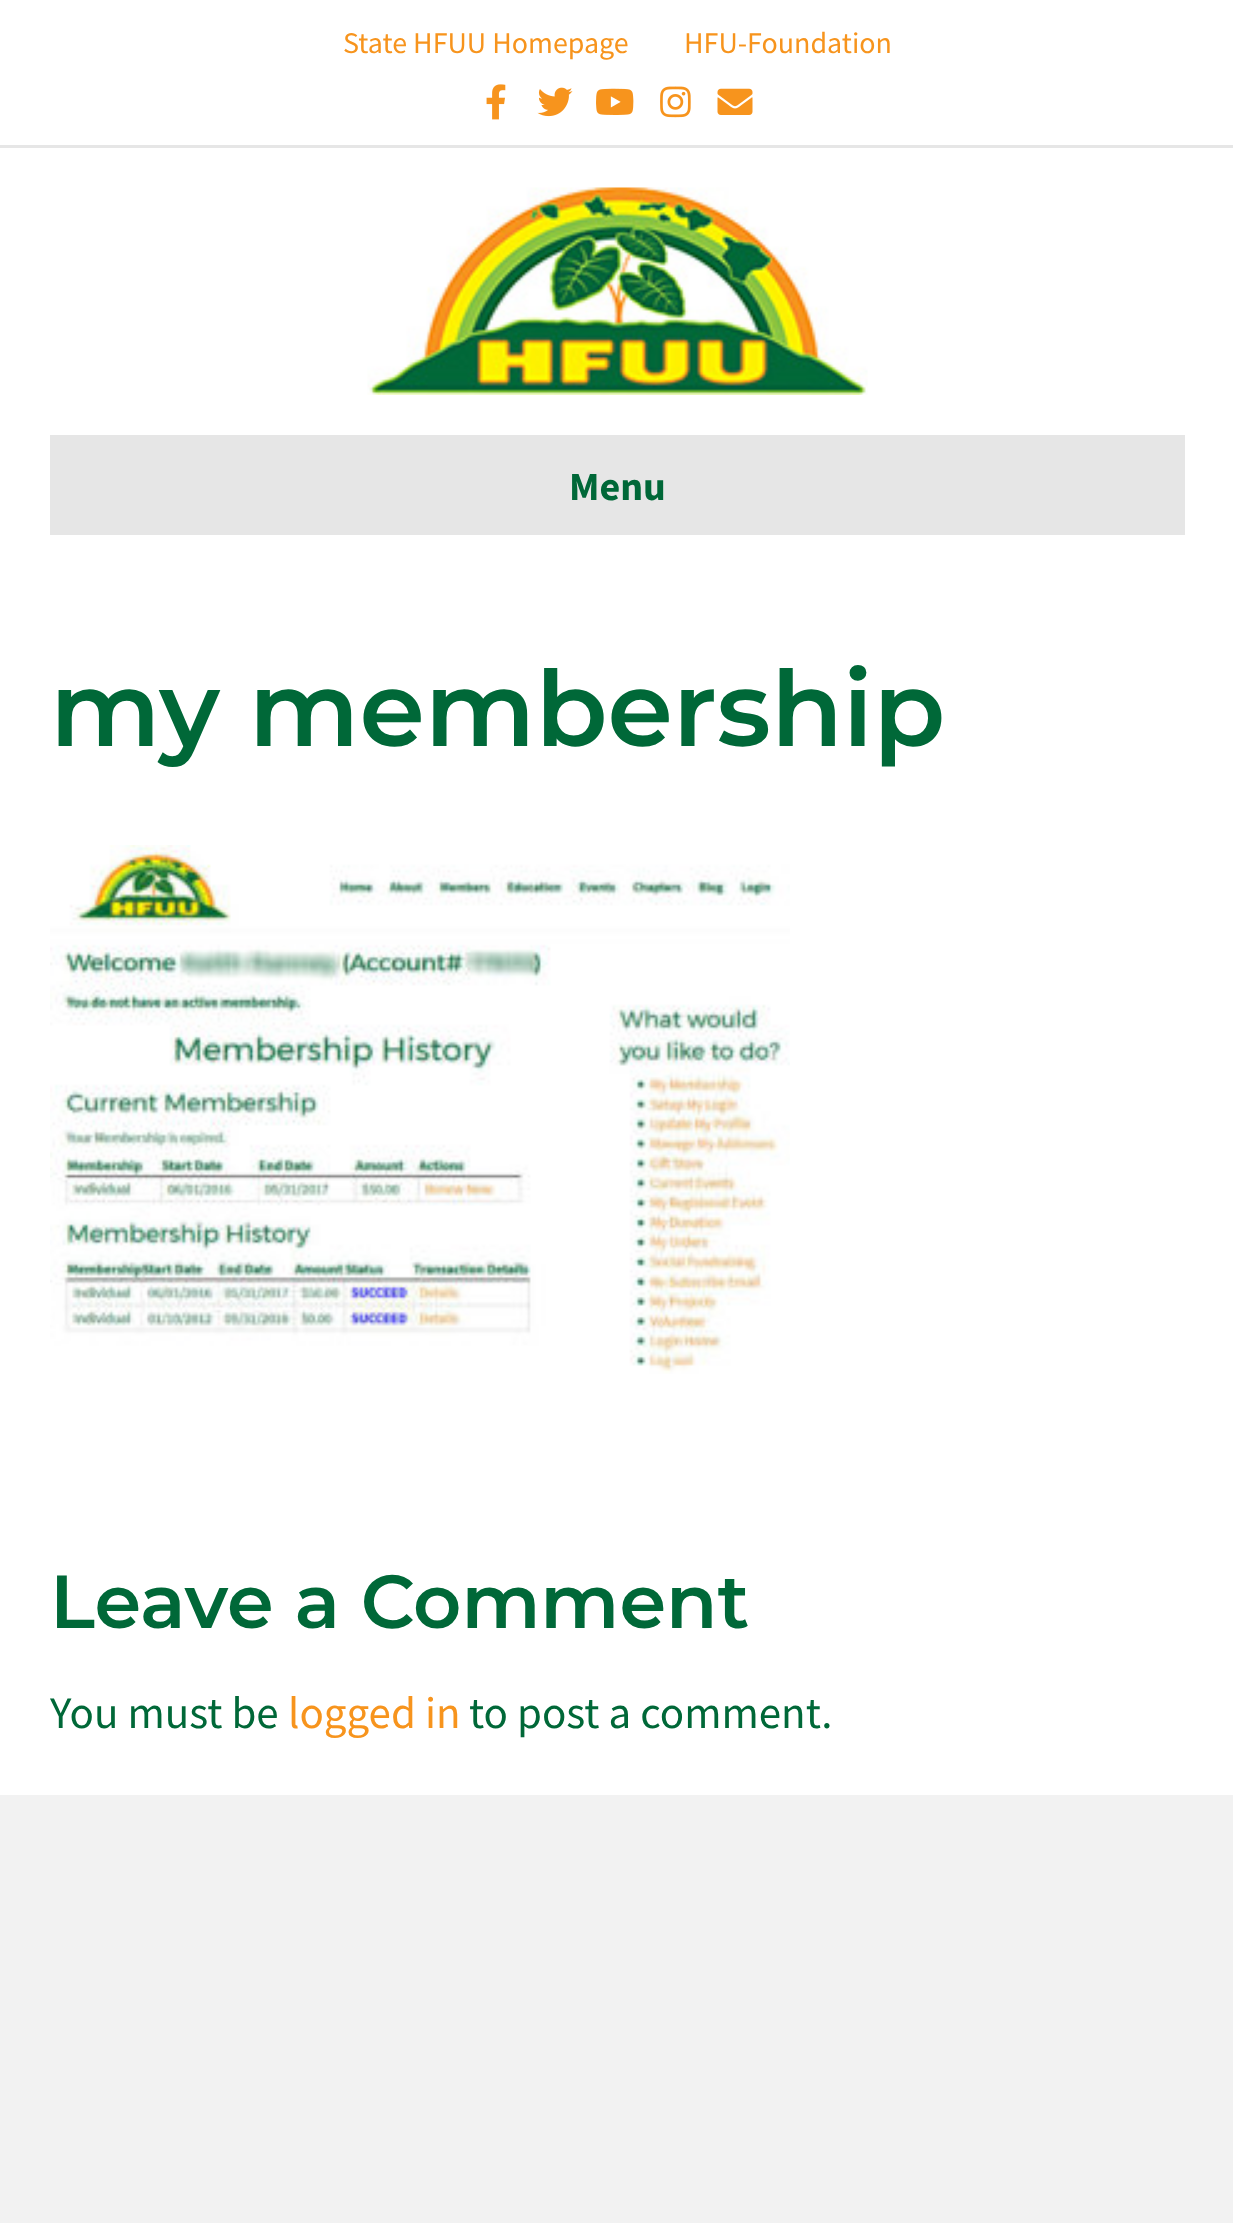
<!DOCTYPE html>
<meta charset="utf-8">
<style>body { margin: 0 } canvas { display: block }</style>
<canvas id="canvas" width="1233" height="2223"></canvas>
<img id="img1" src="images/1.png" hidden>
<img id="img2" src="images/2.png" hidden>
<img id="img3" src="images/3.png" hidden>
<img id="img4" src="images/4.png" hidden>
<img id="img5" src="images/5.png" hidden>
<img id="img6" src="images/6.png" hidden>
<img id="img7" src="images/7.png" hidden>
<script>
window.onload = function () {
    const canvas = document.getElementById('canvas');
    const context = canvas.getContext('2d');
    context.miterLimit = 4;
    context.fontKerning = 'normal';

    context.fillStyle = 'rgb(242, 242, 242)';
    context.fillRect(0, 0, 1233, 2223);
    context.fillStyle = 'rgb(255, 255, 255)';
    context.fillRect(0, 0, 1233, 145);
    context.fillStyle = 'rgb(230, 230, 230)';
    context.fillRect(0, 145, 1233, 3);
    context.drawImage(document.getElementById('img1'), 486, 84, 20, 36);
    context.drawImage(document.getElementById('img2'), 537, 87, 36, 30);
    context.drawImage(document.getElementById('img3'), 596, 88, 38, 27);
    context.drawImage(document.getElementById('img4'), 660, 86, 31, 32);
    context.drawImage(document.getElementById('img5'), 717, 88, 36, 27);
    context.fillStyle = 'rgb(255, 255, 255)';
    context.fillRect(0, 148, 1233, 1647);
    context.drawImage(document.getElementById('img6'), 367, 187, 501, 208);
    context.fillStyle = 'rgb(230, 230, 230)';
    context.fillRect(50, 435, 1135, 100);
    context.drawImage(document.getElementById('img7'), 50, 845, 740, 529);
    context.font = '30px Source Sans Pro';
    context.fillStyle = 'rgb(247, 148, 29)';
    context.fillText('State HFUU Homepage', 343, 53);
    context.fillText('HFU-Foundation', 684, 53);
    context.font = 'bold 40px Source Sans Pro';
    context.fillStyle = 'rgb(0, 104, 56)';
    context.fillText('Menu', 569, 500);
    context.font = '100 105px Montserrat';
    context.fillText('my membership', 50, 746);
    context.font = '100 75px Montserrat';
    context.fillText('Leave a Comment', 50, 1628);
    context.font = '45px Source Sans Pro';
    context.fillText('You must be', 50, 1728);
    context.fillStyle = 'rgb(247, 148, 29)';
    context.fillText('logged in', 288, 1728);
    context.fillStyle = 'rgb(0, 104, 56)';
    context.fillText('to post a comment.', 469, 1728);
};
</script>
